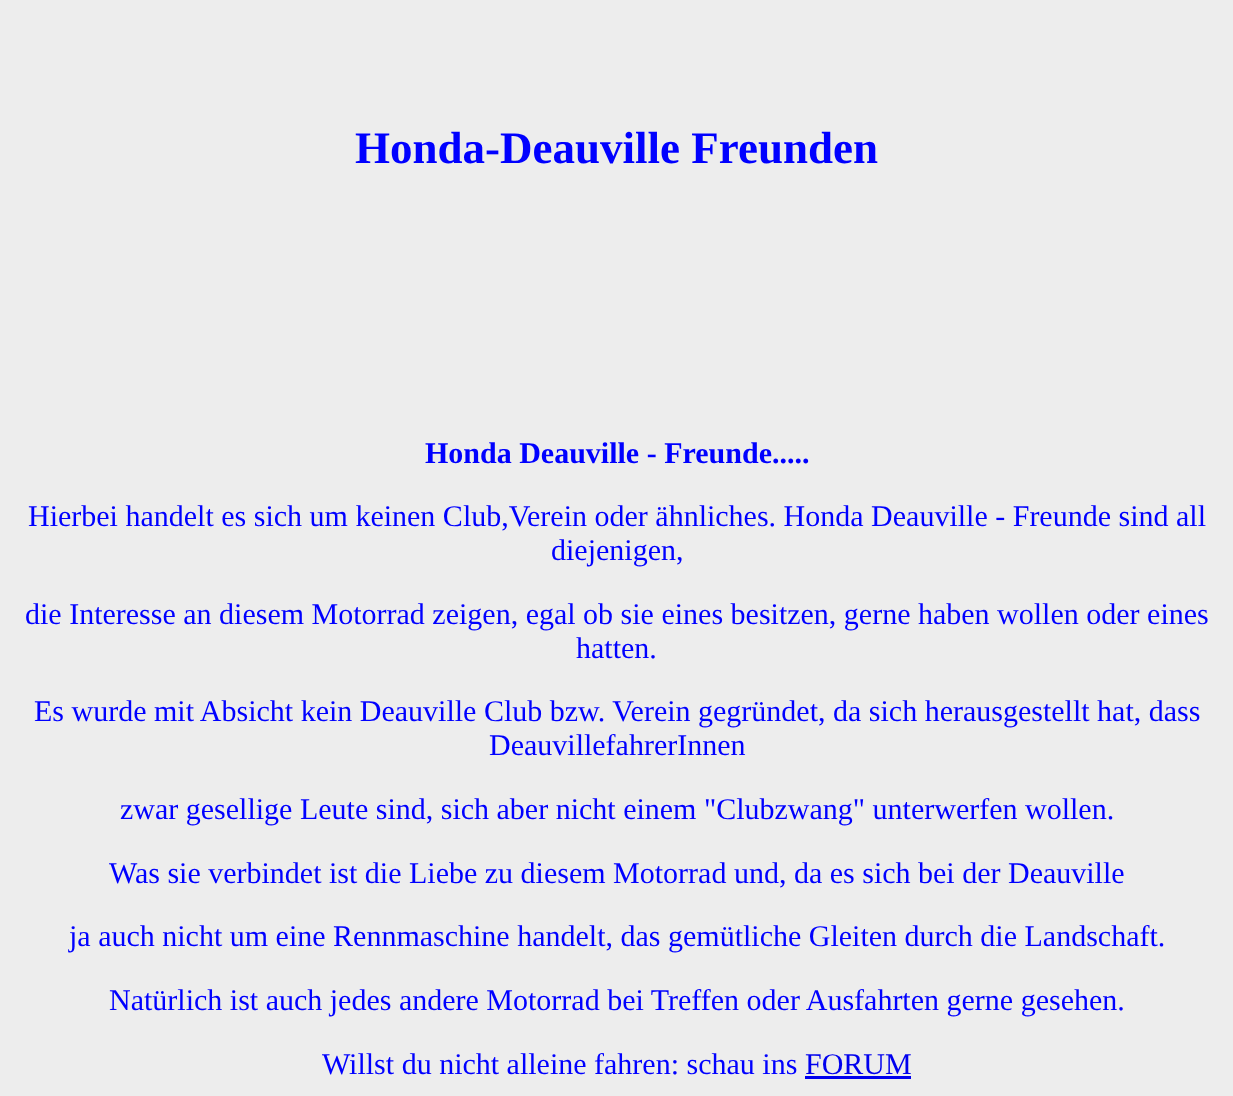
<!DOCTYPE html>
<meta charset="utf-8">
<style>body { margin: 0 } canvas { display: block }</style>
<canvas id="canvas" width="1233" height="1096"></canvas>
<script>
window.onload = function () {
    const canvas = document.getElementById('canvas');
    const context = canvas.getContext('2d');
    context.miterLimit = 4;
    context.fontKerning = 'normal';

    context.fillStyle = 'rgb(237, 237, 237)';
    context.fillRect(0, 0, 1233, 1096);
    context.fillStyle = 'rgb(0, 0, 238)';
    context.fillRect(805, 1076, 106, 3);
    context.font = 'bold 45px Liberation Serif';
    context.fillStyle = 'rgb(0, 0, 255)';
    context.fillText('Honda-Deauville Freunden', 355, 163);
    context.font = 'bold 30px Liberation Serif';
    context.fillText('Honda Deauville - Freunde.....', 425, 463);
    context.font = '30px Liberation Serif';
    context.fillText('Hierbei handelt es sich um keinen Club,Verein oder ähnliches. Honda Deauville - Freunde sind all', 28, 526);
    context.fillText('diejenigen,', 551, 560);
    context.fillText('die Interesse an diesem Motorrad zeigen, egal ob sie eines besitzen, gerne haben wollen oder eines', 25, 624);
    context.fillText('hatten.', 576, 658);
    context.fillText('Es wurde mit Absicht kein Deauville Club bzw. Verein gegründet, da sich herausgestellt hat, dass', 34, 721);
    context.fillText('DeauvillefahrerInnen', 489, 755);
    context.fillText('zwar gesellige Leute sind, sich aber nicht einem "Clubzwang" unterwerfen wollen.', 120, 819);
    context.fillText('Was sie verbindet ist die Liebe zu diesem Motorrad und, da es sich bei der Deauville', 109, 883);
    context.fillText('ja auch nicht um eine Rennmaschine handelt, das gemütliche Gleiten durch die Landschaft.', 69, 946);
    context.fillText('Natürlich ist auch jedes andere Motorrad bei Treffen oder Ausfahrten gerne gesehen.', 109, 1010);
    context.fillText('Willst du nicht alleine fahren: schau ins', 322, 1074);
    context.fillStyle = 'rgb(0, 0, 238)';
    context.fillText('FORUM', 805, 1074);
};
</script>
